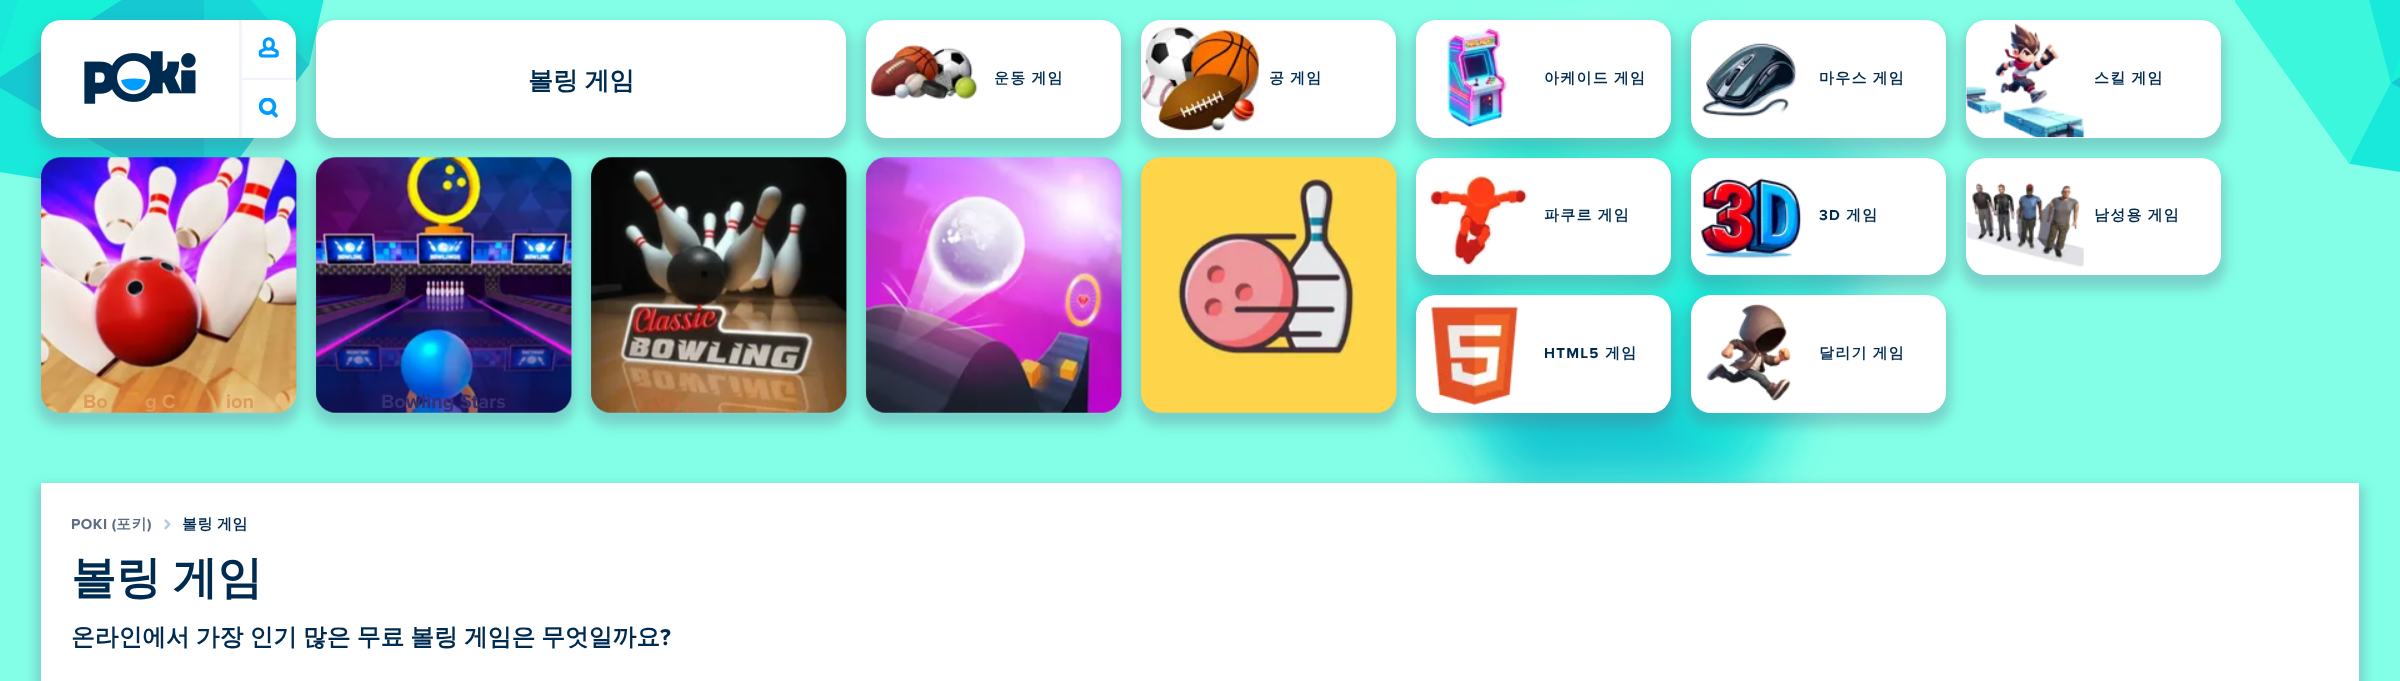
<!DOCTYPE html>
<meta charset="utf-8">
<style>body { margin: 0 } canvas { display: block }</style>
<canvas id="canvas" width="2400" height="681"></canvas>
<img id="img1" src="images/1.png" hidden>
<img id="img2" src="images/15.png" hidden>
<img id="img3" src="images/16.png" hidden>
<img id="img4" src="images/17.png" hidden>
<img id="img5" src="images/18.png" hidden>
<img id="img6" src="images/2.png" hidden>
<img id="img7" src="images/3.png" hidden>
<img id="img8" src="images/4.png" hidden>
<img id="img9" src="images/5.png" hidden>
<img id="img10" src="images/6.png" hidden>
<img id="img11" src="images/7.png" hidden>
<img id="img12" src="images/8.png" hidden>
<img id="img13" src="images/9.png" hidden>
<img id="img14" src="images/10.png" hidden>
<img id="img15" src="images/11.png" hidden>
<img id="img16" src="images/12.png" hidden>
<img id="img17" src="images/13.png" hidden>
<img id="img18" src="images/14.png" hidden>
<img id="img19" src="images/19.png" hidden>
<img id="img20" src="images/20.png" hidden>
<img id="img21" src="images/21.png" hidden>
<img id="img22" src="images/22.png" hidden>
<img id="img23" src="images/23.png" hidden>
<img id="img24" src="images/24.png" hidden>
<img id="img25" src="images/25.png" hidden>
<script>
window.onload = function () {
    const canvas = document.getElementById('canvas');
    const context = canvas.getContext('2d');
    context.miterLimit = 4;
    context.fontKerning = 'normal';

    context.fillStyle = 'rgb(131, 255, 231)';
    context.fillRect(0, 0, 2400, 681);
    context.drawImage(document.getElementById('img1'), 0, 0, 2400, 483);
    context.fillStyle = 'rgba(93, 107, 132, 0.3)';
    context.filter = 'blur(6px)';
    context.beginPath();
    context.roundRect(311, 24, 540, 127, 25);
    context.fill();
    context.filter = 'none';
    context.fillStyle = 'rgb(255, 255, 255)';
    context.beginPath();
    context.roundRect(316, 20, 530, 118, 20);
    context.fill();
    context.fillStyle = 'rgba(93, 107, 132, 0.3)';
    context.filter = 'blur(6px)';
    context.beginPath();
    context.roundRect(36, 161, 265, 265, 25);
    context.fill();
    context.filter = 'none';
    context.drawImage(document.getElementById('img2'), 41, 157, 256, 256);
    context.drawImage(document.getElementById('img3'), 41, 157, 256, 256);
    context.filter = 'blur(6px)';
    context.beginPath();
    context.roundRect(311, 161, 265, 265, 25);
    context.fill();
    context.filter = 'none';
    context.drawImage(document.getElementById('img4'), 316, 157, 256, 256);
    context.drawImage(document.getElementById('img5'), 316, 157, 256, 256);
    context.filter = 'blur(6px)';
    context.beginPath();
    context.roundRect(36, 24, 265, 127, 25);
    context.fill();
    context.filter = 'none';
    context.fillStyle = 'rgb(255, 255, 255)';
    context.beginPath();
    context.roundRect(41, 20, 255, 118, 20);
    context.fill();
    context.drawImage(document.getElementById('img6'), 84, 51, 112, 53);
    context.fillStyle = 'rgb(240, 245, 252)';
    context.fillRect(239, 20, 3, 118);
    context.drawImage(document.getElementById('img7'), 258, 37, 21, 21);
    context.fillRect(241, 78, 55, 2);
    context.drawImage(document.getElementById('img8'), 259, 98, 19, 20);
    context.fillStyle = 'rgba(93, 107, 132, 0.3)';
    context.filter = 'blur(6px)';
    context.beginPath();
    context.roundRect(861, 24, 265, 127, 25);
    context.fill();
    context.filter = 'none';
    context.fillStyle = 'rgb(255, 255, 255)';
    context.beginPath();
    context.roundRect(866, 20, 255, 118, 20);
    context.fill();
    context.drawImage(document.getElementById('img9'), 870, 44, 108, 55);
    context.fillStyle = 'rgba(93, 107, 132, 0.3)';
    context.filter = 'blur(6px)';
    context.beginPath();
    context.roundRect(1136, 24, 265, 127, 25);
    context.fill();
    context.filter = 'none';
    context.fillStyle = 'rgb(255, 255, 255)';
    context.beginPath();
    context.roundRect(1141, 20, 255, 118, 20);
    context.fill();
    context.drawImage(document.getElementById('img10'), 1141, 20, 118, 115);
    context.fillStyle = 'rgba(93, 107, 132, 0.3)';
    context.filter = 'blur(6px)';
    context.beginPath();
    context.roundRect(1411, 24, 265, 127, 25);
    context.fill();
    context.filter = 'none';
    context.fillStyle = 'rgb(255, 255, 255)';
    context.beginPath();
    context.roundRect(1416, 20, 255, 118, 20);
    context.fill();
    context.drawImage(document.getElementById('img11'), 1447, 28, 60, 100);
    context.fillStyle = 'rgba(93, 107, 132, 0.3)';
    context.filter = 'blur(6px)';
    context.beginPath();
    context.roundRect(1686, 24, 265, 127, 25);
    context.fill();
    context.filter = 'none';
    context.fillStyle = 'rgb(255, 255, 255)';
    context.beginPath();
    context.roundRect(1691, 20, 255, 118, 20);
    context.fill();
    context.drawImage(document.getElementById('img12'), 1702, 43, 95, 74);
    context.fillStyle = 'rgba(93, 107, 132, 0.3)';
    context.filter = 'blur(6px)';
    context.beginPath();
    context.roundRect(1961, 24, 265, 127, 25);
    context.fill();
    context.filter = 'none';
    context.fillStyle = 'rgb(255, 255, 255)';
    context.beginPath();
    context.roundRect(1966, 20, 255, 118, 20);
    context.fill();
    context.drawImage(document.getElementById('img13'), 1966, 23, 118, 115);
    context.fillStyle = 'rgba(93, 107, 132, 0.3)';
    context.filter = 'blur(6px)';
    context.beginPath();
    context.roundRect(1411, 161, 265, 128, 25);
    context.fill();
    context.filter = 'none';
    context.fillStyle = 'rgb(255, 255, 255)';
    context.beginPath();
    context.roundRect(1416, 158, 255, 117, 20);
    context.fill();
    context.drawImage(document.getElementById('img14'), 1428, 174, 101, 93);
    context.fillStyle = 'rgba(93, 107, 132, 0.3)';
    context.filter = 'blur(6px)';
    context.beginPath();
    context.roundRect(1686, 161, 265, 128, 25);
    context.fill();
    context.filter = 'none';
    context.fillStyle = 'rgb(255, 255, 255)';
    context.beginPath();
    context.roundRect(1691, 158, 255, 117, 20);
    context.fill();
    context.drawImage(document.getElementById('img15'), 1701, 178, 101, 80);
    context.fillStyle = 'rgba(93, 107, 132, 0.3)';
    context.filter = 'blur(6px)';
    context.beginPath();
    context.roundRect(1961, 161, 265, 128, 25);
    context.fill();
    context.filter = 'none';
    context.fillStyle = 'rgb(255, 255, 255)';
    context.beginPath();
    context.roundRect(1966, 158, 255, 117, 20);
    context.fill();
    context.drawImage(document.getElementById('img16'), 1966, 183, 118, 84);
    context.fillStyle = 'rgba(93, 107, 132, 0.3)';
    context.filter = 'blur(6px)';
    context.beginPath();
    context.roundRect(1411, 299, 265, 127, 25);
    context.fill();
    context.filter = 'none';
    context.fillStyle = 'rgb(255, 255, 255)';
    context.beginPath();
    context.roundRect(1416, 295, 255, 118, 20);
    context.fill();
    context.drawImage(document.getElementById('img17'), 1431, 306, 87, 100);
    context.fillStyle = 'rgba(93, 107, 132, 0.3)';
    context.filter = 'blur(6px)';
    context.beginPath();
    context.roundRect(1686, 299, 265, 127, 25);
    context.fill();
    context.filter = 'none';
    context.fillStyle = 'rgb(255, 255, 255)';
    context.beginPath();
    context.roundRect(1691, 295, 255, 118, 20);
    context.fill();
    context.drawImage(document.getElementById('img18'), 1706, 303, 85, 99);
    context.fillStyle = 'rgba(93, 107, 132, 0.3)';
    context.filter = 'blur(6px)';
    context.beginPath();
    context.roundRect(586, 161, 265, 265, 25);
    context.fill();
    context.filter = 'none';
    context.drawImage(document.getElementById('img19'), 591, 157, 256, 256);
    context.drawImage(document.getElementById('img20'), 591, 157, 256, 256);
    context.filter = 'blur(6px)';
    context.beginPath();
    context.roundRect(861, 161, 265, 265, 25);
    context.fill();
    context.filter = 'none';
    context.drawImage(document.getElementById('img21'), 866, 157, 256, 256);
    context.drawImage(document.getElementById('img22'), 866, 157, 256, 256);
    context.filter = 'blur(6px)';
    context.beginPath();
    context.roundRect(1136, 161, 265, 265, 25);
    context.fill();
    context.filter = 'none';
    context.drawImage(document.getElementById('img23'), 1141, 157, 256, 256);
    context.drawImage(document.getElementById('img24'), 1141, 157, 256, 256);
    context.filter = 'blur(6px)';
    context.beginPath();
    context.rect(36, 486, 2328, 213);
    context.fill();
    context.filter = 'none';
    context.fillStyle = 'rgb(255, 255, 255)';
    context.fillRect(41, 483, 2318, 198);
    context.drawImage(document.getElementById('img25'), 164, 519, 7, 11);
    context.wordSpacing = '-1px';
    context.font = 'bold 25px WenQuanYi Zen Hei';
    context.fillStyle = 'rgb(0, 43, 80)';
    context.fillText('볼링 게임', 528, 89);
    context.letterSpacing = '1.25px';
    context.font = 'bold 15px WenQuanYi Zen Hei';
    context.fillText('운동 게임', 994, 83);
    context.fillText('공 게임', 1269, 83);
    context.fillText('아케이드 게임', 1544, 83);
    context.fillText('마우스 게임', 1819, 83);
    context.fillText('스킬 게임', 2094, 83);
    context.fillText('파쿠르 게임', 1544, 220);
    context.wordSpacing = '0px';
    context.font = 'bold 15px Proxima Nova';
    context.fillText('3D', 1819, 220);
    context.font = 'bold 15px WenQuanYi Zen Hei';
    context.fillText('게임', 1846, 220);
    context.wordSpacing = '-1px';
    context.fillText('남성용 게임', 2094, 220);
    context.wordSpacing = '0px';
    context.font = 'bold 15px Proxima Nova';
    context.fillText('HTML5', 1544, 358);
    context.font = 'bold 15px WenQuanYi Zen Hei';
    context.fillText('게임', 1605, 358);
    context.wordSpacing = '-1px';
    context.fillText('달리기 게임', 1819, 358);
    context.letterSpacing = '0px';
    context.wordSpacing = '0px';
    context.font = 'bold 20px Proxima Nova';
    context.fillStyle = 'rgb(223, 156, 87)';
    context.fillText('Bo', 83, 408);
    context.fillText('g C', 145, 408);
    context.fillText('ion', 226, 408);
    context.fillStyle = 'rgb(51, 48, 116)';
    context.fillText('Bowling Stars', 381, 408);
    context.letterSpacing = '0.5px';
    context.font = 'bold 15px Proxima Nova';
    context.fillStyle = 'rgb(93, 107, 132)';
    context.fillText('POKI (', 71, 529);
    context.font = 'bold 15px WenQuanYi Zen Hei';
    context.fillText('포키', 116, 529);
    context.font = 'bold 15px Proxima Nova';
    context.fillText(')', 147, 529);
    context.wordSpacing = '-1px';
    context.font = 'bold 15px WenQuanYi Zen Hei';
    context.fillStyle = 'rgb(0, 43, 80)';
    context.fillText('볼링 게임', 182, 529);
    context.letterSpacing = '0px';
    context.wordSpacing = '-2px';
    context.font = 'bold 45px WenQuanYi Zen Hei';
    context.fillText('볼링 게임', 71, 593);
    context.wordSpacing = '-1px';
    context.font = 'bold 23.75px WenQuanYi Zen Hei';
    context.fillText('온라인에서 가장 인기 많은 무료 볼링 게임은 무엇일까요', 71, 645);
    context.wordSpacing = '0px';
    context.font = 'bold 23.75px Proxima Nova';
    context.fillText('?', 660, 645);
};
</script>
